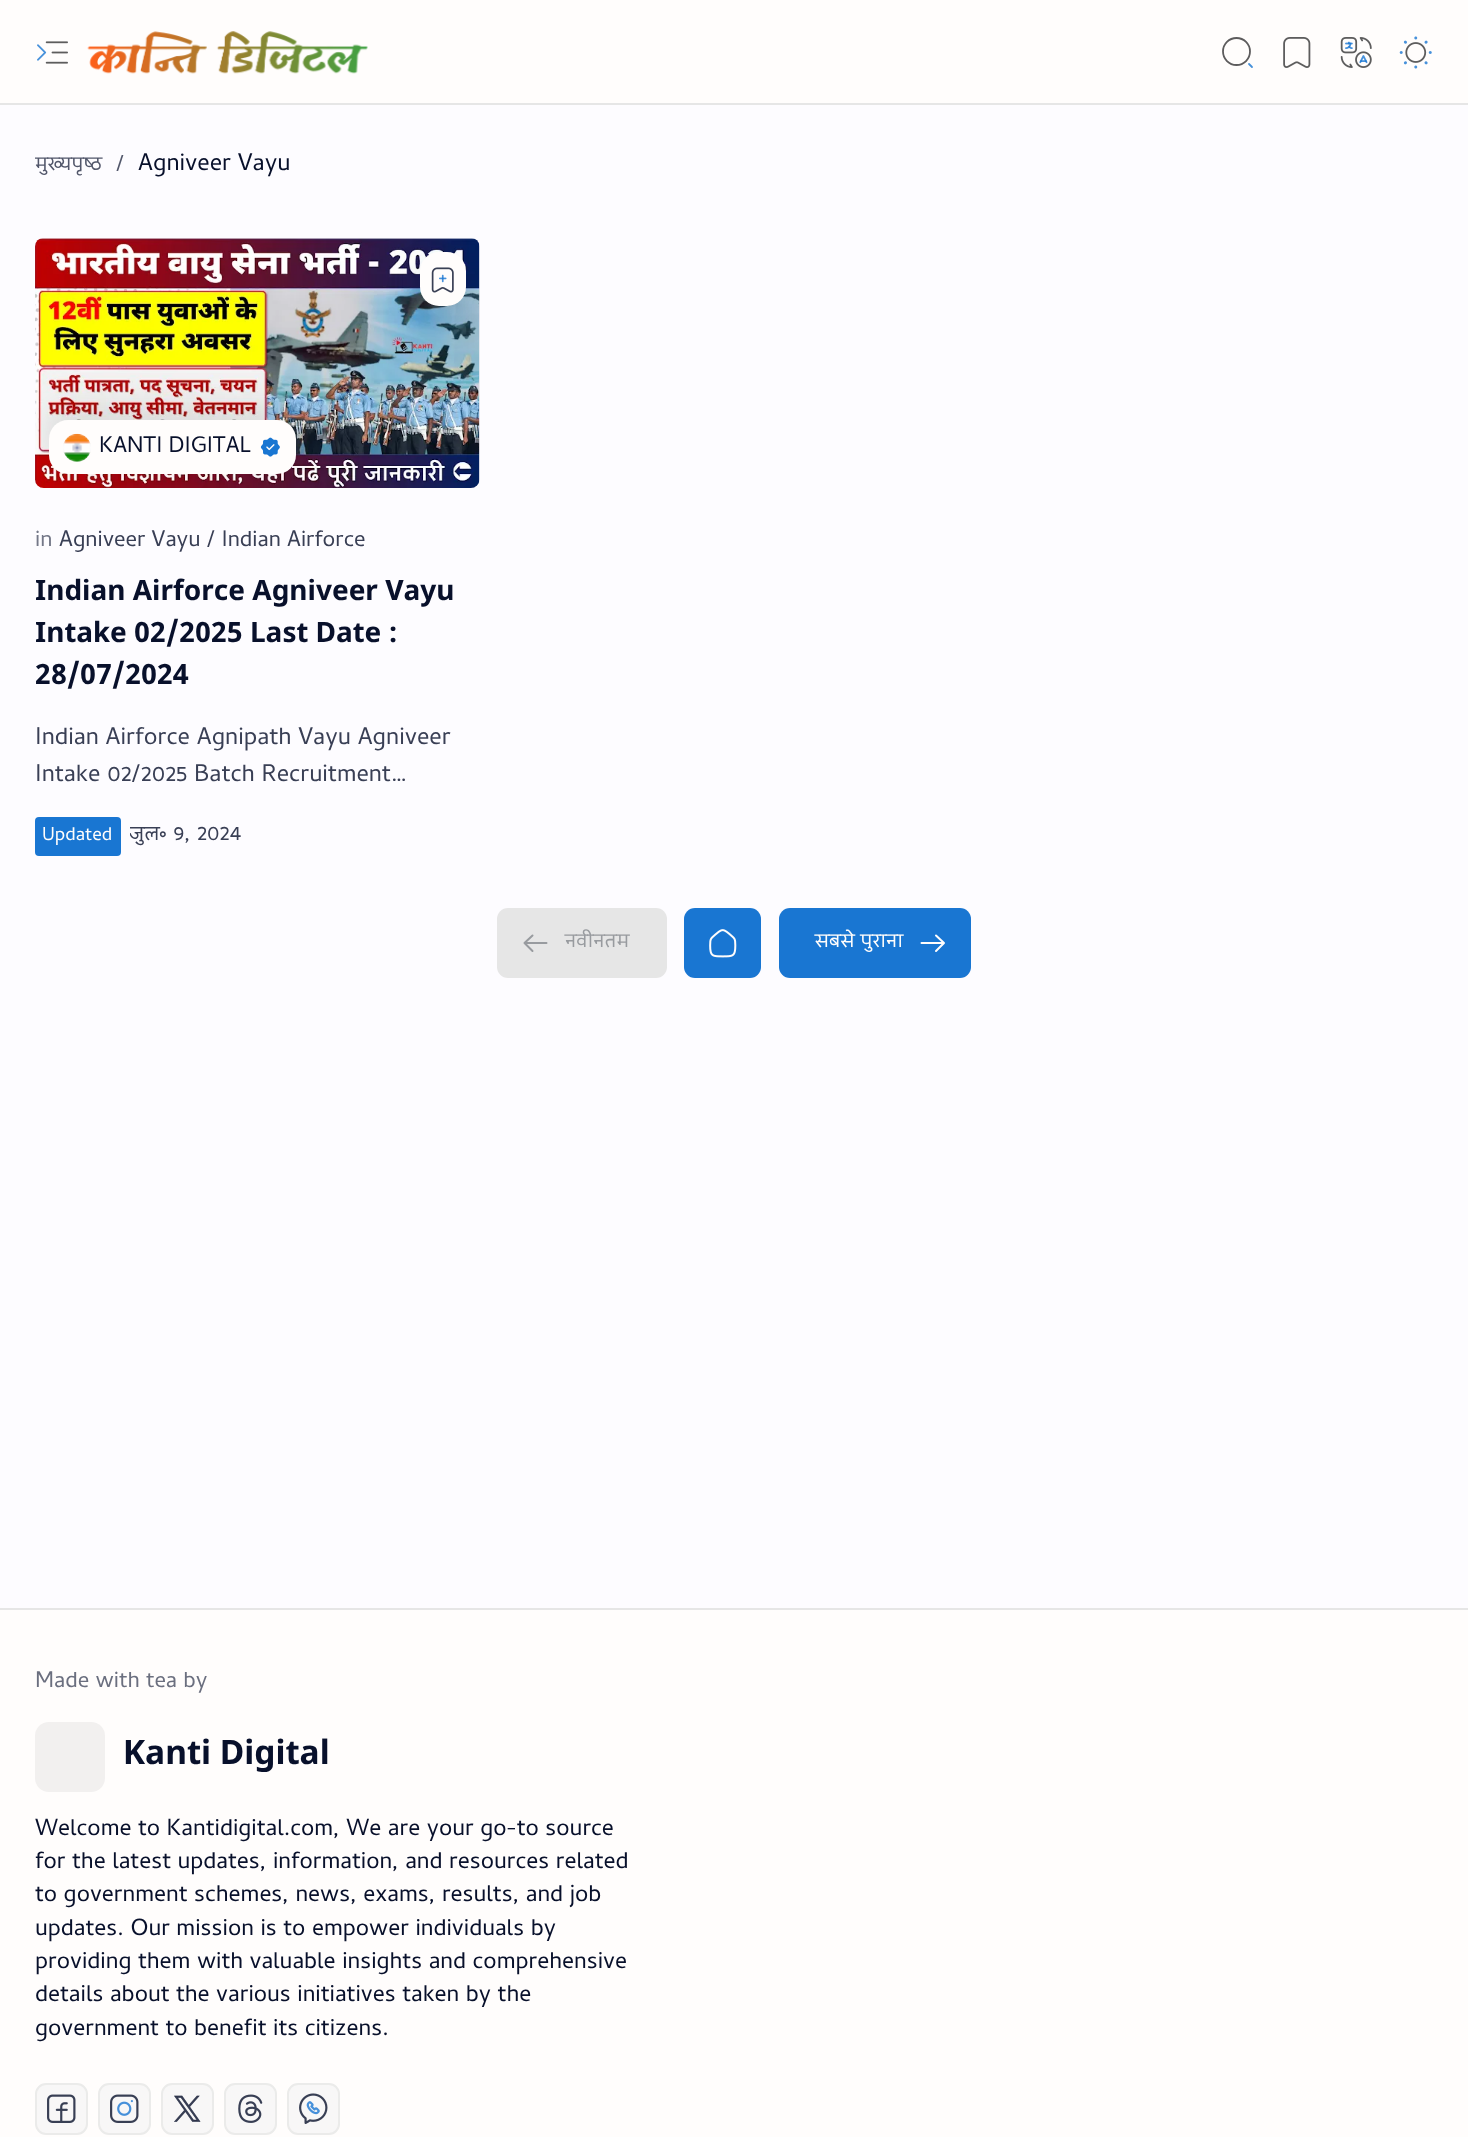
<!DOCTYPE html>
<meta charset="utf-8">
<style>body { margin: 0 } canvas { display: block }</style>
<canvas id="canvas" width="1468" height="2137"></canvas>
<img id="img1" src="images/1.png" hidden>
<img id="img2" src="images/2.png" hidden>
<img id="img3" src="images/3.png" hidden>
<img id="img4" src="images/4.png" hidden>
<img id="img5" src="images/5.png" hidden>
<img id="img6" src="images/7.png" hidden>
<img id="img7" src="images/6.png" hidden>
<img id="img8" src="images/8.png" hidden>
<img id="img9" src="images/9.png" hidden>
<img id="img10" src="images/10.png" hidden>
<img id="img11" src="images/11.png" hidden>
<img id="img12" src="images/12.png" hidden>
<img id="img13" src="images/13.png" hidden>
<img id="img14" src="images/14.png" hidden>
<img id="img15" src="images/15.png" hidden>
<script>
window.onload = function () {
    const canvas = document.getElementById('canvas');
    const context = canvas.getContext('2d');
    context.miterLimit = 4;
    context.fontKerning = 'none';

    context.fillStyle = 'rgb(253, 252, 255)';
    context.fillRect(0, 0, 1468, 2137);
    context.fillStyle = 'rgb(255, 253, 252)';
    context.fillRect(0, 0, 1468, 103);
    context.drawImage(document.getElementById('img1'), 37, 41, 31, 23);
    context.drawImage(document.getElementById('img2'), 87, 31, 281, 43);
    context.beginPath();
    context.arc(1236.5, 51.5, 13.5, 0, 2 * Math.PI);
    context.strokeStyle = 'rgb(93, 92, 93)';
    context.lineWidth = 1.8;
    context.stroke();
    context.beginPath();
    context.moveTo(1252, 67);
    context.lineTo(1249, 64);
    context.strokeStyle = 'rgb(71, 145, 218)';
    context.lineCap = 'round';
    context.lineJoin = 'round';
    context.stroke();
    context.drawImage(document.getElementById('img3'), 1283, 37, 28, 31);
    context.drawImage(document.getElementById('img4'), 1340, 37, 32, 31);
    context.drawImage(document.getElementById('img5'), 1399, 36, 33, 33);
    context.fillStyle = 'rgb(230, 230, 230)';
    context.fillRect(0, 103, 1468, 2);
    context.fillStyle = 'rgb(240, 239, 243)';
    context.beginPath();
    context.roundRect(35, 238, 445, 250, 9);
    context.fill();
    context.drawImage(document.getElementById('img6'), 35, 238, 445, 250);
    context.save();
    context.beginPath();
    context.roundRect(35, 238, 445, 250, 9);
    context.clip();
    context.fillStyle = 'rgba(0, 0, 0, 0.1)';
    context.filter = 'blur(17.5px)';
    context.beginPath();
    context.roundRect(420, 266, 46, 54, 19);
    context.fill();
    context.filter = 'none';
    context.restore();
    context.fillStyle = 'rgb(255, 253, 252)';
    context.beginPath();
    context.roundRect(420, 252, 46, 54, 19);
    context.fill();
    context.drawImage(document.getElementById('img7'), 431, 267, 23, 26);
    context.save();
    context.beginPath();
    context.roundRect(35, 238, 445, 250, 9);
    context.clip();
    context.fillStyle = 'rgba(0, 0, 0, 0.1)';
    context.filter = 'blur(17.5px)';
    context.beginPath();
    context.roundRect(49, 406, 247, 54, 19);
    context.fill();
    context.filter = 'none';
    context.restore();
    context.beginPath();
    context.roundRect(49, 420, 247, 54, 19);
    context.fill();
    context.fillStyle = 'rgb(242, 240, 239)';
    context.beginPath();
    context.arc(77, 448, 14, 0, 2 * Math.PI);
    context.fill();
    context.drawImage(document.getElementById('img8'), 63, 433, 28, 29);
    context.drawImage(document.getElementById('img9'), 260, 437, 20, 20);
    context.fillStyle = 'rgb(25, 118, 210)';
    context.beginPath();
    context.roundRect(35, 817, 86, 39, 4);
    context.fill();
    context.fillStyle = 'rgb(230, 230, 230)';
    context.beginPath();
    context.roundRect(497, 908, 170, 70, 11);
    context.fill();
    context.beginPath();
    context.moveTo(532.5, 935.5);
    context.lineTo(524.5, 943);
    context.lineTo(532.5, 951);
    context.moveTo(546.5, 943);
    context.lineTo(524.5, 943);
    context.strokeStyle = 'rgb(152, 155, 159)';
    context.lineWidth = 2;
    context.stroke();
    context.fillStyle = 'rgb(25, 118, 210)';
    context.beginPath();
    context.roundRect(684, 908, 77, 70, 11);
    context.fill();
    context.drawImage(document.getElementById('img10'), 709, 929, 28, 29);
    context.beginPath();
    context.roundRect(779, 908, 192, 70, 11);
    context.fill();
    context.beginPath();
    context.moveTo(936, 935.5);
    context.lineTo(944, 943);
    context.lineTo(936, 951);
    context.moveTo(921.5, 943);
    context.lineTo(943.5, 943);
    context.strokeStyle = 'rgb(255, 253, 252)';
    context.stroke();
    context.fillStyle = 'rgb(255, 253, 252)';
    context.fillRect(0, 1610, 1468, 527);
    context.fillStyle = 'rgb(230, 230, 230)';
    context.fillRect(0, 1608, 1468, 2);
    context.fillStyle = 'rgb(242, 240, 239)';
    context.beginPath();
    context.roundRect(35, 1722, 70, 70, 14);
    context.fill();
    context.fillStyle = 'rgb(248, 247, 247)';
    context.beginPath();
    context.roundRect(36, 2084, 51, 50, 10);
    context.fill();
    context.strokeStyle = 'rgb(235, 235, 234)';
    context.lineJoin = 'miter';
    context.stroke();
    context.drawImage(document.getElementById('img11'), 47, 2094, 29, 29);
    context.beginPath();
    context.roundRect(99, 2084, 51, 50, 10);
    context.fill();
    context.stroke();
    context.drawImage(document.getElementById('img12'), 110, 2094, 29, 29);
    context.beginPath();
    context.roundRect(162, 2084, 51, 50, 10);
    context.fill();
    context.stroke();
    context.drawImage(document.getElementById('img13'), 174, 2095, 27, 27);
    context.beginPath();
    context.roundRect(225, 2084, 51, 50, 10);
    context.fill();
    context.stroke();
    context.drawImage(document.getElementById('img14'), 238, 2094, 25, 29);
    context.beginPath();
    context.roundRect(288, 2084, 51, 50, 10);
    context.fill();
    context.stroke();
    context.drawImage(document.getElementById('img15'), 299, 2093, 29, 31);
    context.save();
    context.beginPath();
    context.rect(35, 145, 1398, 41);
    context.clip();
    context.font = '22px Cambay';
    context.fillStyle = 'rgb(82, 87, 107)';
    context.fillText('मुख्यपृष्ठ', 35, 170);
    context.restore();
    context.font = '22px Cambay';
    context.fillStyle = 'rgb(82, 87, 107)';
    context.fillText('/', 116, 170);
    context.font = '24.5px Cambay';
    context.fillStyle = 'rgb(8, 16, 43)';
    context.fillText('Agniveer Vayu', 138, 170);
    context.font = '22.75px Cambay';
    context.fillText('KANTI DIGITAL', 99, 452);
    context.fillStyle = 'rgb(116, 120, 136)';
    context.fillText('in', 35, 546);
    context.fillStyle = 'rgb(57, 63, 85)';
    context.fillText('Agniveer Vayu / Indian Airforce', 59, 546);
    context.font = 'bold 28px Noto Sans Devanagari';
    context.fillStyle = 'rgb(8, 16, 43)';
    context.fillText('Indian Airforce Agniveer Vayu', 35, 600);
    context.fillText('Intake 02/2025 Last Date :', 35, 642);
    context.fillText('28/07/2024', 35, 684);
    context.font = '24.5px Cambay';
    context.fillStyle = 'rgb(57, 63, 85)';
    context.fillText('Indian Airforce Agnipath Vayu Agniveer', 35, 744);
    context.fillText('Intake 02/2025 Batch Recruitment…', 35, 781);
    context.font = '19px Cambay';
    context.fillStyle = 'rgb(255, 253, 252)';
    context.fillText('Updated', 42, 840);
    context.save();
    context.beginPath();
    context.rect(130, 821, 112, 31);
    context.clip();
    context.font = '22.75px Cambay';
    context.fillStyle = 'rgb(57, 63, 85)';
    context.fillText('जुल॰ 9, 2024', 129, 840);
    context.restore();
    context.font = '22px Cambay';
    context.fillStyle = 'rgb(152, 155, 159)';
    context.fillText('नवीनतम', 565, 947);
    context.fillStyle = 'rgb(255, 253, 252)';
    context.fillText('सबसे पुराना', 815, 947);
    context.font = '22.75px Cambay';
    context.fillStyle = 'rgb(107, 111, 127)';
    context.fillText('Made with tea by', 35, 1687);
    context.font = 'bold 33.5px Noto Sans Devanagari';
    context.fillStyle = 'rgb(8, 16, 43)';
    context.fillText('Kanti Digital', 123, 1764);
    context.font = '23.75px Cambay';
    context.fillText('Welcome to Kantidigital.com, We are your go-to source', 35, 1835);
    context.fillText('for the latest updates, information, and resources related', 35, 1868);
    context.fillText('to government schemes, news, exams, results, and job', 35, 1901);
    context.fillText('updates. Our mission is to empower individuals by', 35, 1935);
    context.fillText('providing them with valuable insights and comprehensive', 35, 1968);
    context.fillText('details about the various initiatives taken by the', 35, 2001);
    context.fillText('government to benefit its citizens.', 35, 2035);
};
</script>
